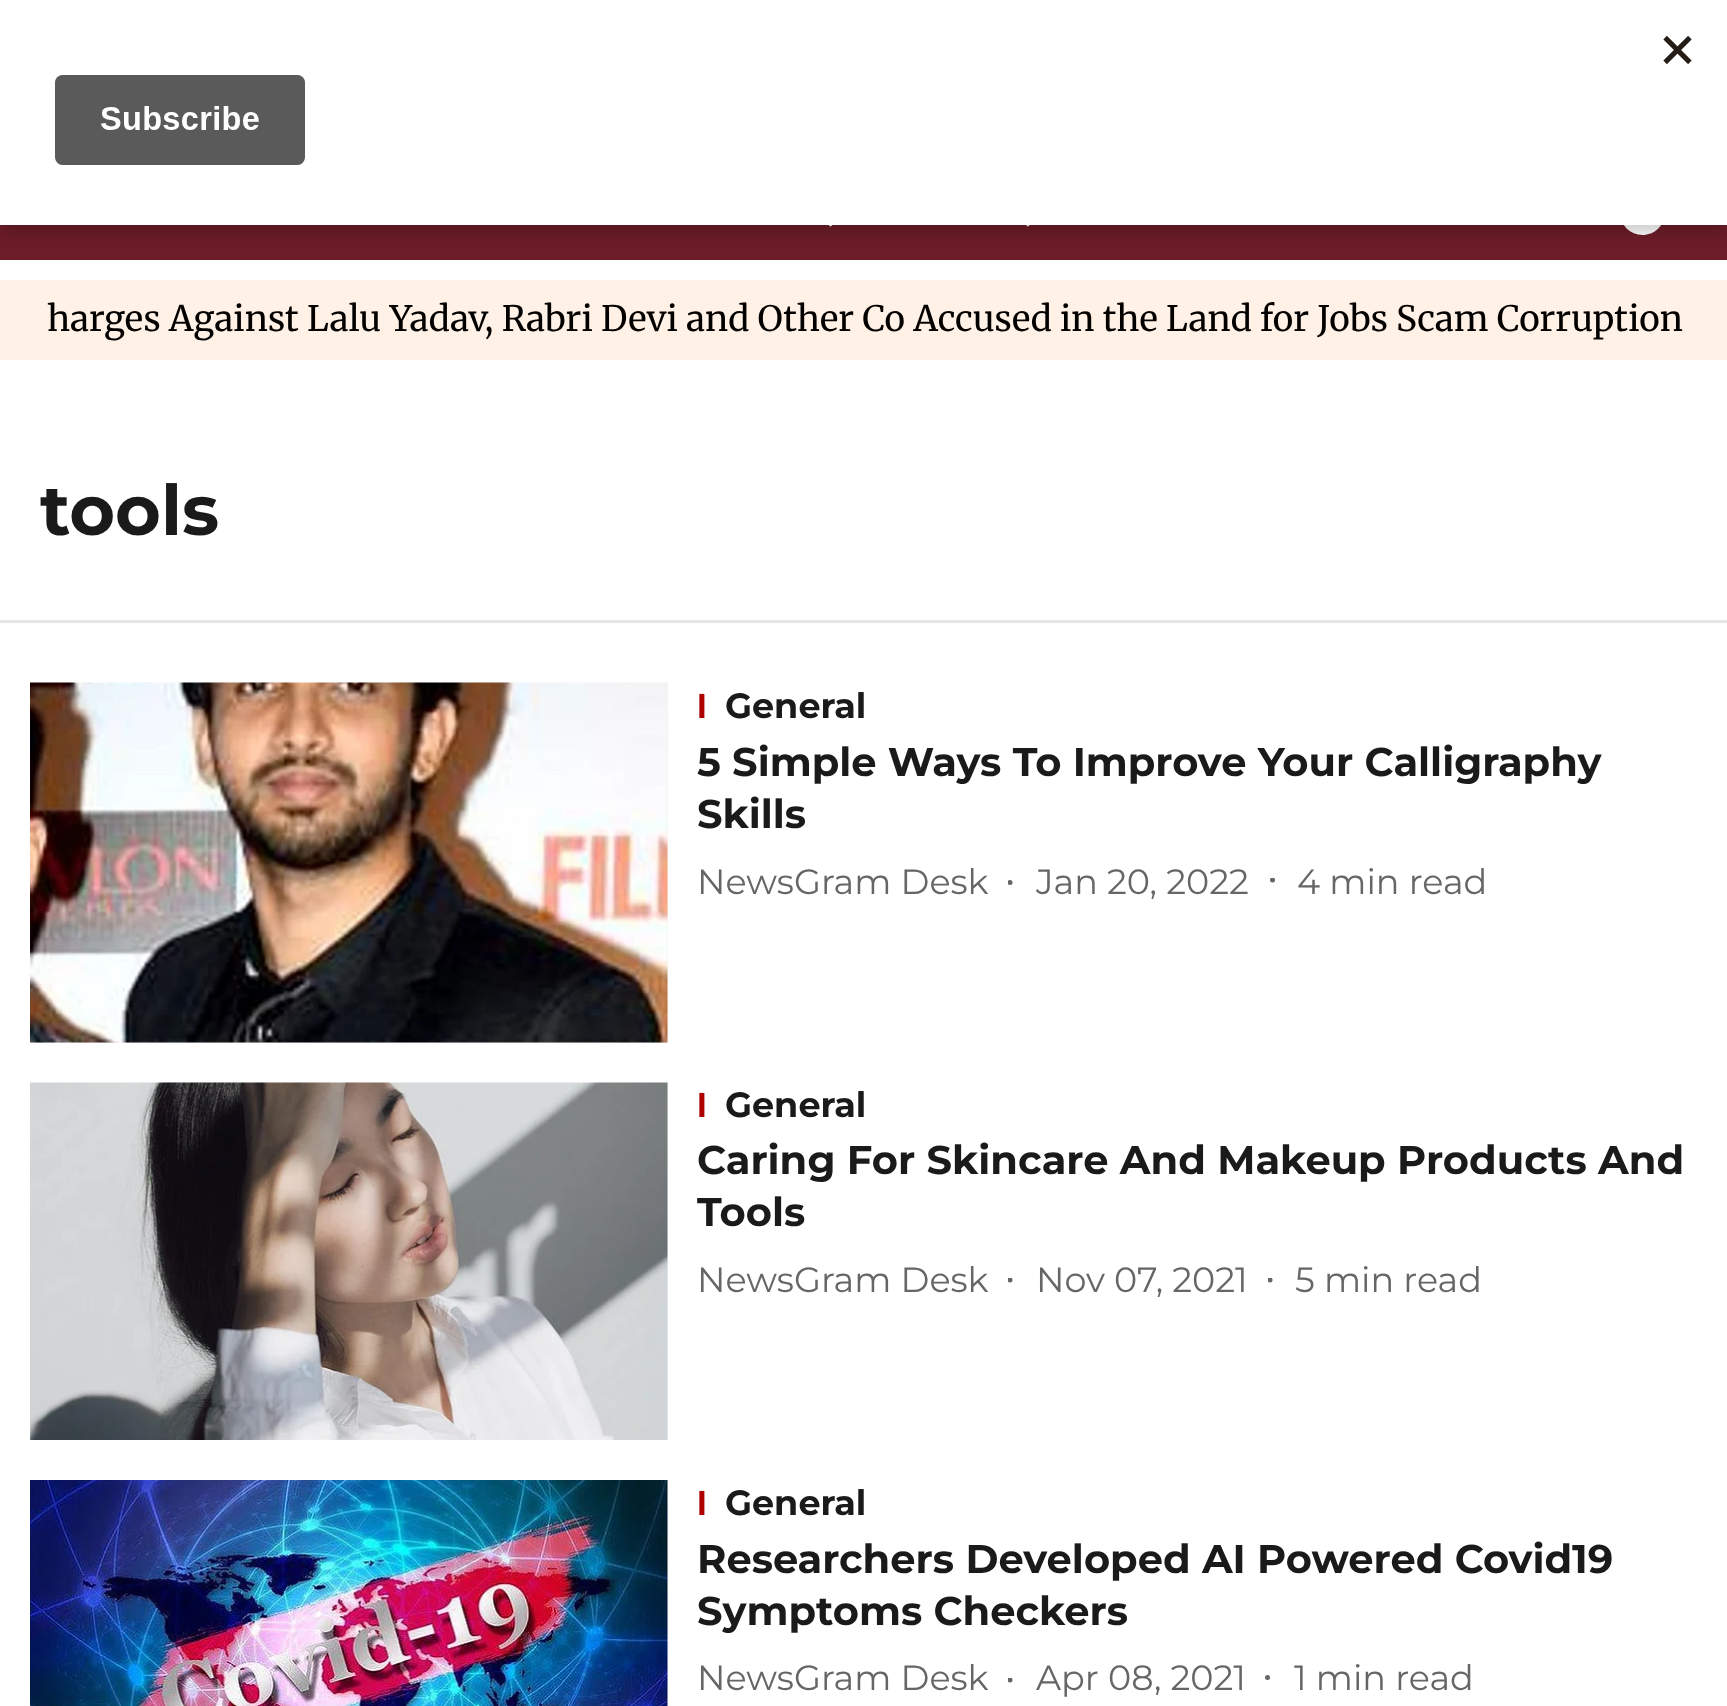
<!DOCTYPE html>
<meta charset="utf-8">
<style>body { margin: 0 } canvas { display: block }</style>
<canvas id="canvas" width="1727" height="1706"></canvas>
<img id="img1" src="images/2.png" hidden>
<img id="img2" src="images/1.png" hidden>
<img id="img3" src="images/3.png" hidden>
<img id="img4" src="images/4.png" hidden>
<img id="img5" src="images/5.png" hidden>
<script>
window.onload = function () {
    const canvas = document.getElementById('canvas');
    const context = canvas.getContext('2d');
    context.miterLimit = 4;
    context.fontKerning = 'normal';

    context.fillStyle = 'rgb(255, 255, 255)';
    context.fillRect(0, 0, 1727, 1706);
    context.fillStyle = 'rgb(109, 29, 40)';
    context.fillRect(0, 225, 1727, 35);
    context.fillStyle = 'rgb(255, 255, 255)';
    context.beginPath();
    context.moveTo(843, 210.5);
    context.lineTo(844.5, 212.5);
    context.lineTo(830.5, 226.5);
    context.lineTo(828.5, 225);
    context.closePath();
    context.fill();
    context.beginPath();
    context.moveTo(818, 210.5);
    context.lineTo(832.5, 225);
    context.lineTo(830.5, 226.5);
    context.lineTo(816.5, 212.5);
    context.closePath();
    context.fill();
    context.beginPath();
    context.moveTo(1040, 210.5);
    context.lineTo(1042, 212.5);
    context.lineTo(1028, 226.5);
    context.lineTo(1026, 225);
    context.closePath();
    context.fill();
    context.beginPath();
    context.moveTo(1015.5, 210.5);
    context.lineTo(1029.5, 225);
    context.lineTo(1028, 226.5);
    context.lineTo(1013.5, 212.5);
    context.closePath();
    context.fill();
    context.drawImage(document.getElementById('img1'), 1624, 225, 37, 10);
    context.fillStyle = 'rgba(0, 0, 0, 0.2)';
    context.filter = 'blur(7.5px)';
    context.beginPath();
    context.rect(0, 8, 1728, 225);
    context.fill();
    context.filter = 'none';
    context.fillStyle = 'rgb(255, 255, 255)';
    context.fillRect(0, 0, 1727, 225);
    context.drawImage(document.getElementById('img2'), 55, 35, 1637, 130);
    context.fillStyle = 'rgb(255, 241, 229)';
    context.fillRect(0, 280, 1727, 80);
    context.fillStyle = 'rgb(230, 230, 230)';
    context.fillRect(0, 620, 1727, 3);
    context.fillStyle = 'rgb(240, 240, 240)';
    context.fillRect(30, 683, 638, 360);
    context.drawImage(document.getElementById('img3'), 30, 682, 638, 361);
    context.save();
    context.beginPath();
    context.rect(1008, 880, 8, 8);
    context.clip();
    context.fillStyle = 'rgb(102, 102, 102)';
    context.beginPath();
    context.arc(1010, 882.5, 2.5, 0, 2 * Math.PI);
    context.fill();
    context.restore();
    context.save();
    context.beginPath();
    context.rect(1270, 878, 8, 8);
    context.clip();
    context.fillStyle = 'rgb(102, 102, 102)';
    context.beginPath();
    context.arc(1272.5, 880, 2.5, 0, 2 * Math.PI);
    context.fill();
    context.restore();
    context.fillRect(667, 1083, 1, 357);
    context.drawImage(document.getElementById('img4'), 30, 1082, 638, 358);
    context.save();
    context.beginPath();
    context.rect(1008, 1278, 8, 8);
    context.clip();
    context.fillStyle = 'rgb(102, 102, 102)';
    context.beginPath();
    context.arc(1010, 1280, 2.5, 0, 2 * Math.PI);
    context.fill();
    context.restore();
    context.save();
    context.beginPath();
    context.rect(1268, 1278, 8, 8);
    context.clip();
    context.fillStyle = 'rgb(102, 102, 102)';
    context.beginPath();
    context.arc(1270, 1280, 2.5, 0, 2 * Math.PI);
    context.fill();
    context.restore();
    context.fillRect(667, 1480, 1, 226);
    context.drawImage(document.getElementById('img5'), 30, 1480, 638, 226);
    context.save();
    context.beginPath();
    context.rect(1008, 1678, 8, 8);
    context.clip();
    context.fillStyle = 'rgb(102, 102, 102)';
    context.beginPath();
    context.arc(1010, 1680, 2.5, 0, 2 * Math.PI);
    context.fill();
    context.restore();
    context.fillStyle = 'rgb(102, 102, 102)';
    context.beginPath();
    context.arc(1267.5, 1677.5, 2.5, 0, 2 * Math.PI);
    context.fill();
    context.font = '300 35px Merriweather';
    context.fillStyle = 'rgb(3, 0, 0)';
    context.fillText('harges Against Lalu Yadav, Rabri Devi and Other Co Accused in the Land for Jobs Scam Corruption', 47, 331);
    context.font = '100 70px Montserrat';
    context.fillStyle = 'rgb(26, 26, 26)';
    context.fillText('tools', 40, 535);
    context.font = 'bold 35px Liberation Sans';
    context.fillStyle = 'rgb(175, 0, 0)';
    context.fillText('I', 697, 718);
    context.font = '100 35px Montserrat';
    context.fillStyle = 'rgb(26, 26, 26)';
    context.fillText('General', 725, 718);
    context.font = '100 40px Montserrat';
    context.fillText('5 Simple Ways To Improve Your Calligraphy', 697, 776);
    context.fillText('Skills', 697, 828);
    context.font = '100 35px "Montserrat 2"';
    context.fillStyle = 'rgb(102, 102, 102)';
    context.fillText('NewsGram Desk', 697, 894);
    context.fillText('Jan 20, 2022', 1036, 894);
    context.fillText('4 min read', 1297, 894);
    context.font = 'bold 35px Liberation Sans';
    context.fillStyle = 'rgb(175, 0, 0)';
    context.fillText('I', 697, 1117);
    context.font = '100 35px Montserrat';
    context.fillStyle = 'rgb(26, 26, 26)';
    context.fillText('General', 725, 1117);
    context.font = '100 40px Montserrat';
    context.fillText('Caring For Skincare And Makeup Products And', 697, 1174);
    context.fillText('Tools', 697, 1226);
    context.font = '100 35px "Montserrat 2"';
    context.fillStyle = 'rgb(102, 102, 102)';
    context.fillText('NewsGram Desk', 697, 1292);
    context.fillText('Nov 07, 2021', 1036, 1292);
    context.fillText('5 min read', 1295, 1292);
    context.font = 'bold 35px Liberation Sans';
    context.fillStyle = 'rgb(175, 0, 0)';
    context.fillText('I', 697, 1515);
    context.font = '100 35px Montserrat';
    context.fillStyle = 'rgb(26, 26, 26)';
    context.fillText('General', 725, 1515);
    context.font = '100 40px Montserrat';
    context.fillText('Researchers Developed AI Powered Covid19', 697, 1573);
    context.fillText('Symptoms Checkers', 697, 1625);
    context.font = '100 35px "Montserrat 2"';
    context.fillStyle = 'rgb(102, 102, 102)';
    context.fillText('NewsGram Desk', 697, 1690);
    context.fillText('Apr 08, 2021', 1036, 1690);
    context.fillText('1 min read', 1294, 1690);
};
</script>
